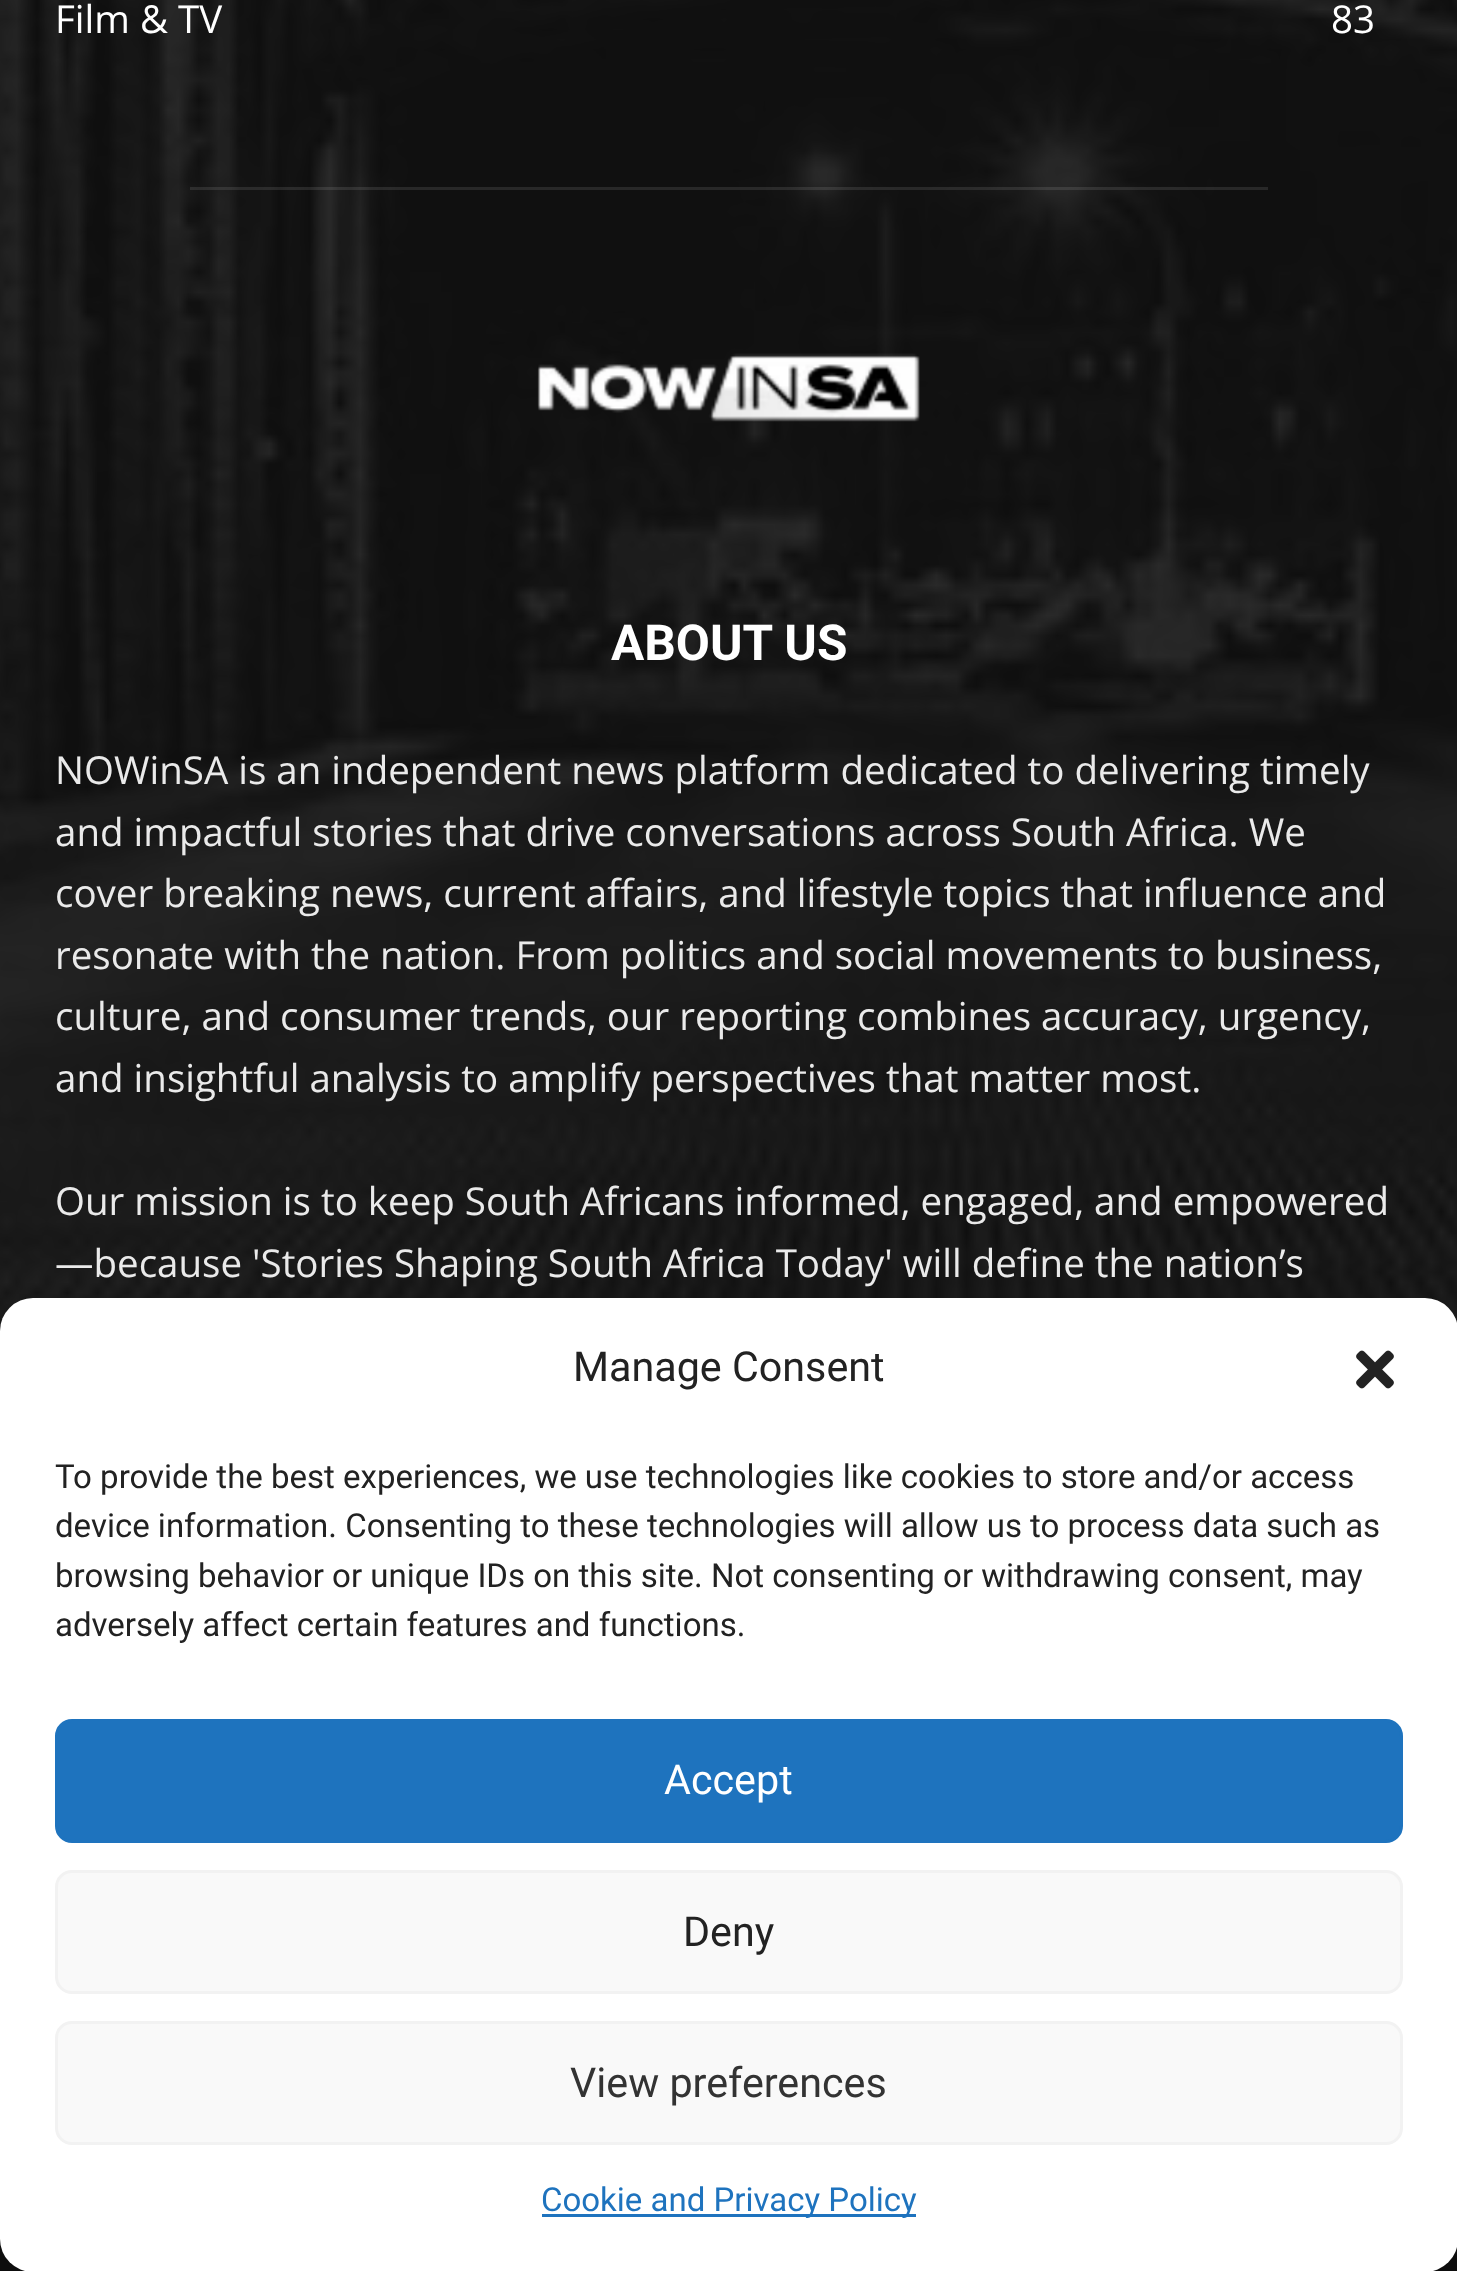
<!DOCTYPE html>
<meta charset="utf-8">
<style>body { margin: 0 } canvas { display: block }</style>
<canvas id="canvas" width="1457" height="2271"></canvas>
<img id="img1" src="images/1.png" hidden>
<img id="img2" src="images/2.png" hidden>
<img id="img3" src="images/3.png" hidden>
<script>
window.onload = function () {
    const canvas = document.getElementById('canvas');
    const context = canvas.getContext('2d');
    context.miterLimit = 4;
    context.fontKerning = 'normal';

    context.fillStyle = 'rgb(17, 17, 17)';
    context.fillRect(0, 0, 1457, 2271);
    context.drawImage(document.getElementById('img1'), 0, 0, 1457, 1331);
    context.fillStyle = 'rgba(255, 255, 255, 0.1)';
    context.fillRect(190, 187, 1078, 3);
    context.drawImage(document.getElementById('img2'), 537, 353, 383, 69);
    context.fillStyle = 'rgb(13, 13, 13)';
    context.fillRect(0, 2239, 1457, 32);
    context.fillStyle = 'rgb(255, 255, 255)';
    context.beginPath();
    context.roundRect(0, 1298, 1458, 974, 33);
    context.fill();
    context.drawImage(document.getElementById('img3'), 1356, 1350, 38, 39);
    context.fillStyle = 'rgb(30, 115, 190)';
    context.beginPath();
    context.roundRect(56.5, 1720.5, 1345, 121, 15.5);
    context.fill();
    context.strokeStyle = 'rgb(30, 115, 190)';
    context.lineWidth = 3;
    context.stroke();
    context.fillStyle = 'rgb(249, 249, 249)';
    context.beginPath();
    context.roundRect(56.5, 1871.5, 1345, 121, 15.5);
    context.fill();
    context.strokeStyle = 'rgb(242, 242, 242)';
    context.stroke();
    context.beginPath();
    context.roundRect(56.5, 2022.5, 1345, 121, 15.5);
    context.fill();
    context.stroke();
    context.fillStyle = 'rgb(30, 115, 190)';
    context.fillRect(542, 2214, 374, 3);
    context.font = '38.5px Open Sans';
    context.fillStyle = 'rgb(255, 255, 255)';
    context.fillText('Film & TV', 55, 33);
    context.fillText('83', 1331, 33);
    context.font = 'bold 49.5px Roboto';
    context.fillText('ABOUT US', 611, 660);
    context.font = '38.5px Open Sans';
    context.fillStyle = 'rgb(234, 234, 234)';
    context.fillText('NOWinSA is an independent news platform dedicated to delivering timely', 55, 784);
    context.fillText('and impactful stories that drive conversations across South Africa. We', 55, 846);
    context.fillText('cover breaking news, current affairs, and lifestyle topics that influence and', 55, 907);
    context.fillText('resonate with the nation. From politics and social movements to business,', 55, 969);
    context.fillText('culture, and consumer trends, our reporting combines accuracy, urgency,', 55, 1030);
    context.fillText('and insightful analysis to amplify perspectives that matter most.', 55, 1092);
    context.fillText('Our mission is to keep South Africans informed, engaged, and empowered', 55, 1215);
    context.fillText('—because \'Stories Shaping South Africa Today\' will define the nation’s', 55, 1277);
    context.font = '41.25px Roboto';
    context.fillStyle = 'rgb(34, 34, 34)';
    context.fillText('Manage Consent', 573, 1381);
    context.font = '33px Roboto';
    context.fillText('To provide the best experiences, we use technologies like cookies to store and/or access', 55, 1488);
    context.fillText('device information. Consenting to these technologies will allow us to process data such as', 55, 1537);
    context.fillText('browsing behavior or unique IDs on this site. Not consenting or withdrawing consent, may', 55, 1587);
    context.fillText('adversely affect certain features and functions.', 55, 1636);
    context.font = '41.25px Roboto';
    context.fillStyle = 'rgb(255, 255, 255)';
    context.fillText('Accept', 664, 1794);
    context.fillStyle = 'rgb(34, 34, 34)';
    context.fillText('Deny', 683, 1946);
    context.fillStyle = 'rgb(51, 51, 51)';
    context.fillText('View preferences', 570, 2097);
    context.font = '33px Roboto';
    context.fillStyle = 'rgb(30, 115, 190)';
    context.fillText('Cookie and Privacy Policy', 541, 2211);
};
</script>
